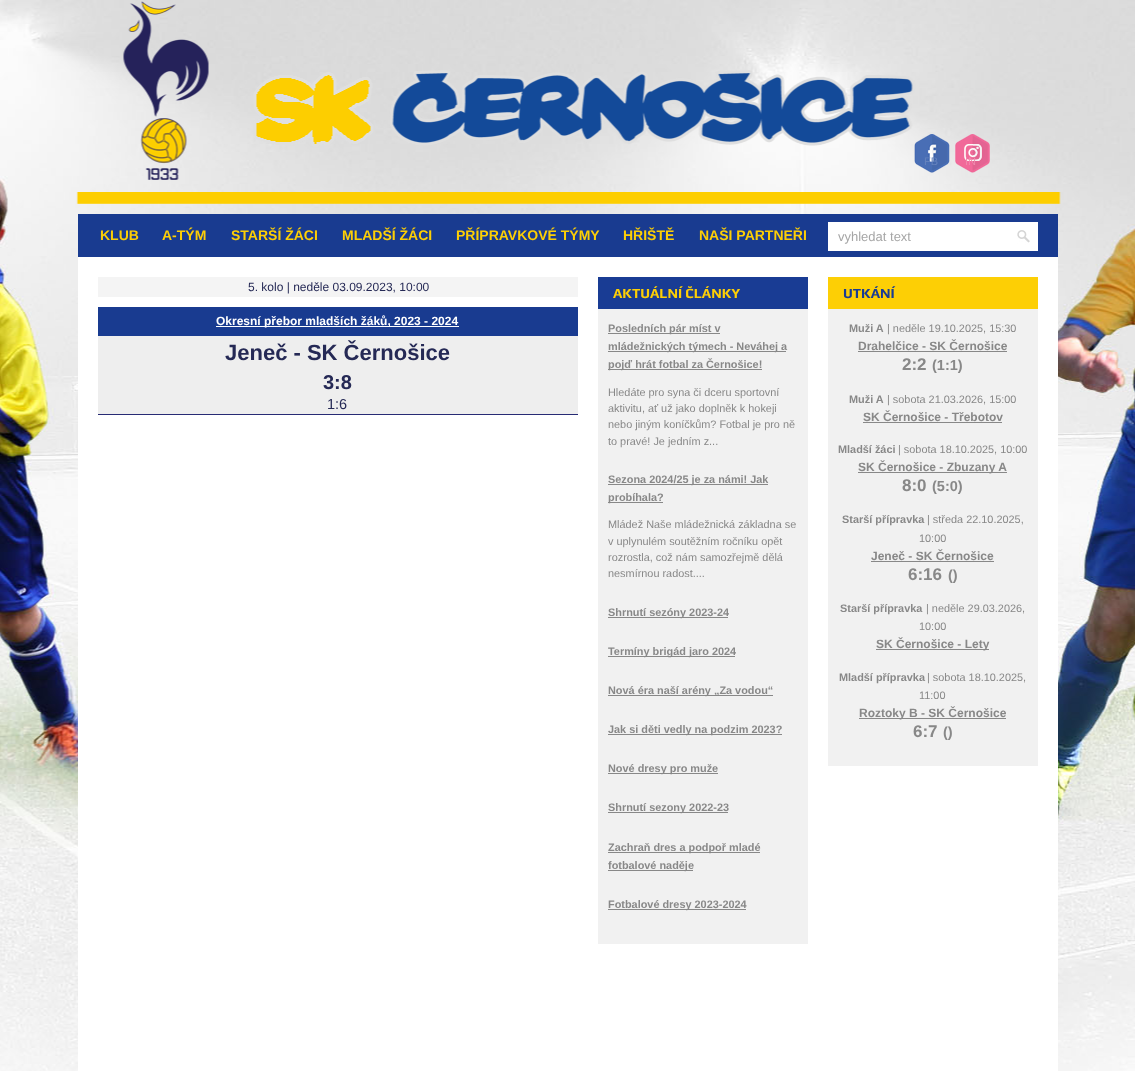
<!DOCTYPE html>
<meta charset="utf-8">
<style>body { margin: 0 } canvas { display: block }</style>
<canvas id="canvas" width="1135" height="1071"></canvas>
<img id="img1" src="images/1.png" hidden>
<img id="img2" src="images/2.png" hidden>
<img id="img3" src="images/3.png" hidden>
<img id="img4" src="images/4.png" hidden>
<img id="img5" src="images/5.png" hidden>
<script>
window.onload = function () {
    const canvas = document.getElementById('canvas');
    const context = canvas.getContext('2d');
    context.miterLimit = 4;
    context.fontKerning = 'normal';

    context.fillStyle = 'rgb(255, 255, 255)';
    context.fillRect(0, 0, 1135, 1071);
    context.drawImage(document.getElementById('img1'), 0, 0, 1135, 1071);
    context.drawImage(document.getElementById('img2'), 76, 1, 985, 203);
    context.drawImage(document.getElementById('img3'), 914, 134, 36, 39);
    context.drawImage(document.getElementById('img4'), 955, 134, 35, 39);
    context.fillStyle = 'rgb(25, 59, 144)';
    context.fillRect(78, 214, 980, 43);
    context.fillStyle = 'rgb(255, 255, 255)';
    context.fillRect(828, 222, 210, 29);
    context.drawImage(document.getElementById('img5'), 1017, 230, 18, 19);
    context.fillRect(78, 257, 980, 814);
    context.fillStyle = 'rgb(244, 244, 244)';
    context.fillRect(98, 277, 480, 20);
    context.fillStyle = 'rgb(25, 59, 144)';
    context.fillRect(98, 307, 480, 29);
    context.fillStyle = 'rgb(255, 255, 255)';
    context.fillRect(216, 326, 243, 1);
    context.fillStyle = 'rgb(238, 238, 238)';
    context.fillRect(98, 336, 480, 78);
    context.fillStyle = 'rgb(39, 43, 116)';
    context.fillRect(98, 414, 480, 1);
    context.fillStyle = 'rgb(25, 60, 148)';
    context.fillRect(598, 277, 210, 32);
    context.fillStyle = 'rgb(241, 241, 241)';
    context.fillRect(598, 309, 210, 635);
    context.fillStyle = 'rgb(136, 136, 136)';
    context.fillRect(608, 333, 112, 1);
    context.fillRect(608, 351, 178, 1);
    context.fillRect(608, 369, 154, 1);
    context.fillRect(608, 484, 160, 1);
    context.fillRect(608, 502, 55, 1);
    context.fillRect(608, 617, 120, 1);
    context.fillRect(608, 656, 127, 1);
    context.fillRect(608, 695, 165, 1);
    context.fillRect(608, 734, 174, 1);
    context.fillRect(608, 773, 110, 1);
    context.fillRect(608, 812, 120, 1);
    context.fillRect(608, 852, 152, 1);
    context.fillRect(608, 870, 85, 1);
    context.fillRect(608, 909, 138, 1);
    context.fillStyle = 'rgb(253, 207, 5)';
    context.fillRect(828, 277, 210, 32);
    context.fillStyle = 'rgb(241, 241, 241)';
    context.fillRect(828, 309, 210, 457);
    context.fillStyle = 'rgb(136, 136, 136)';
    context.fillRect(858, 351, 149, 1);
    context.fillRect(863, 422, 139, 1);
    context.fillRect(858, 472, 149, 1);
    context.fillRect(871, 561, 123, 1);
    context.fillRect(876, 649, 113, 1);
    context.fillRect(859, 718, 147, 1);
    context.font = '11px Liberation Sans';
    context.fillStyle = 'rgb(100, 130, 189)';
    context.fillText('FB', 924, 165);
    context.fillStyle = 'rgb(240, 137, 173)';
    context.fillText('IN', 965, 165);
    context.font = 'bold 14px Liberation Sans';
    context.fillStyle = 'rgb(253, 207, 5)';
    context.fillText('KLUB', 100, 240);
    context.fillText('A-TÝM', 162, 240);
    context.fillText('STARŠÍ ŽÁCI', 231, 240);
    context.fillText('MLADŠÍ ŽÁCI', 342, 240);
    context.fillText('PŘÍPRAVKOVÉ TÝMY', 456, 240);
    context.fillText('HŘIŠTĚ', 623, 240);
    context.fillText('NAŠI PARTNEŘI', 699, 240);
    context.font = '13px Liberation Sans';
    context.fillStyle = 'rgb(166, 166, 166)';
    context.fillText('vyhledat text', 838, 241);
    context.font = '12px Liberation Sans';
    context.fillStyle = 'rgb(37, 41, 85)';
    context.fillText('5. kolo | neděle 03.09.2023, 10:00', 248, 291);
    context.font = 'bold 12px Liberation Sans';
    context.fillStyle = 'rgb(255, 255, 255)';
    context.fillText('Okresní přebor mladších žáků, 2023 - 2024', 216, 325);
    context.font = 'bold 22px Liberation Sans';
    context.fillStyle = 'rgb(37, 41, 85)';
    context.fillText('Jeneč - SK Černošice', 225, 360);
    context.font = 'bold 20px Liberation Sans';
    context.fillText('3:8', 323, 389);
    context.font = '14.5px Liberation Sans';
    context.fillText('1:6', 327, 409);
    context.font = 'bold 14px Play';
    context.fillStyle = 'rgb(253, 207, 5)';
    context.fillText('AKTUÁLNÍ ČLÁNKY', 613, 298);
    context.font = 'bold 10.9px Liberation Sans';
    context.fillStyle = 'rgb(136, 136, 136)';
    context.fillText('Posledních pár míst v', 608, 332);
    context.fillText('mládežnických týmech - Neváhej a', 608, 350);
    context.fillText('pojď hrát fotbal za Černošice!', 608, 368);
    context.font = '10.9px Liberation Sans';
    context.fillText('Hledáte pro syna či dceru sportovní', 608, 396);
    context.fillText('aktivitu, ať už jako doplněk k hokeji', 608, 412);
    context.fillText('nebo jiným koníčkům? Fotbal je pro ně', 608, 428);
    context.fillText('to pravé! Je jedním z...', 608, 445);
    context.font = 'bold 10.9px Liberation Sans';
    context.fillText('Sezona 2024/25 je za námi! Jak', 608, 483);
    context.fillText('probíhala?', 608, 501);
    context.font = '10.9px Liberation Sans';
    context.fillText('Mládež Naše mládežnická základna se', 608, 528);
    context.fillText('v uplynulém soutěžním ročníku opět', 608, 545);
    context.fillText('rozrostla, což nám samozřejmě dělá', 608, 561);
    context.fillText('nesmírnou radost....', 608, 577);
    context.font = 'bold 10.9px Liberation Sans';
    context.fillText('Shrnutí sezóny 2023-24', 608, 616);
    context.fillText('Termíny brigád jaro 2024', 608, 655);
    context.fillText('Nová éra naší arény „Za vodou“', 608, 694);
    context.fillText('Jak si děti vedly na podzim 2023?', 608, 733);
    context.fillText('Nové dresy pro muže', 608, 772);
    context.fillText('Shrnutí sezony 2022-23', 608, 811);
    context.fillText('Zachraň dres a podpoř mladé', 608, 851);
    context.fillText('fotbalové naděje', 608, 869);
    context.fillText('Fotbalové dresy 2023-2024', 608, 908);
    context.font = 'bold 14px Play';
    context.fillStyle = 'rgb(25, 60, 148)';
    context.fillText('UTKÁNÍ', 843, 298);
    context.font = 'bold 10.9px Liberation Sans';
    context.fillStyle = 'rgb(136, 136, 136)';
    context.fillText('Muži A', 849, 332);
    context.font = '10.9px Liberation Sans';
    context.fillText('| neděle 19.10.2025, 15:30', 887, 332);
    context.font = 'bold 12px Liberation Sans';
    context.fillText('Drahelčice - SK Černošice', 858, 350);
    context.font = 'bold 17px Liberation Sans';
    context.fillText('2:2', 902, 370);
    context.font = 'bold 14.5px Liberation Sans';
    context.fillText('(1:1)', 932, 370);
    context.font = 'bold 10.9px Liberation Sans';
    context.fillText('Muži A', 849, 403);
    context.font = '10.9px Liberation Sans';
    context.fillText('| sobota 21.03.2026, 15:00', 887, 403);
    context.font = 'bold 12px Liberation Sans';
    context.fillText('SK Černošice - Třebotov', 863, 421);
    context.font = 'bold 10.9px Liberation Sans';
    context.fillText('Mladší žáci', 838, 453);
    context.font = '10.9px Liberation Sans';
    context.fillText('| sobota 18.10.2025, 10:00', 898, 453);
    context.font = 'bold 12px Liberation Sans';
    context.fillText('SK Černošice - Zbuzany A', 858, 471);
    context.font = 'bold 17px Liberation Sans';
    context.fillText('8:0', 902, 491);
    context.font = 'bold 14.5px Liberation Sans';
    context.fillText('(5:0)', 932, 491);
    context.font = 'bold 10.9px Liberation Sans';
    context.fillText('Starší přípravka', 842, 523);
    context.font = '10.9px Liberation Sans';
    context.fillText('| středa 22.10.2025,', 927, 523);
    context.fillText('10:00', 919, 542);
    context.font = 'bold 12px Liberation Sans';
    context.fillText('Jeneč - SK Černošice', 871, 560);
    context.font = 'bold 17px Liberation Sans';
    context.fillText('6:16', 908, 580);
    context.font = 'bold 14.5px Liberation Sans';
    context.fillText('()', 948, 580);
    context.font = 'bold 10.9px Liberation Sans';
    context.fillText('Starší přípravka', 840, 612);
    context.font = '10.9px Liberation Sans';
    context.fillText('| neděle 29.03.2026,', 926, 612);
    context.fillText('10:00', 919, 630);
    context.font = 'bold 12px Liberation Sans';
    context.fillText('SK Černošice - Lety', 876, 648);
    context.font = 'bold 10.9px Liberation Sans';
    context.fillText('Mladší přípravka', 839, 681);
    context.font = '10.9px Liberation Sans';
    context.fillText('| sobota 18.10.2025,', 927, 681);
    context.fillText('11:00', 919, 699);
    context.font = 'bold 12px Liberation Sans';
    context.fillText('Roztoky B - SK Černošice', 859, 717);
    context.font = 'bold 17px Liberation Sans';
    context.fillText('6:7', 913, 737);
    context.font = 'bold 14.5px Liberation Sans';
    context.fillText('()', 943, 737);
};
</script>
